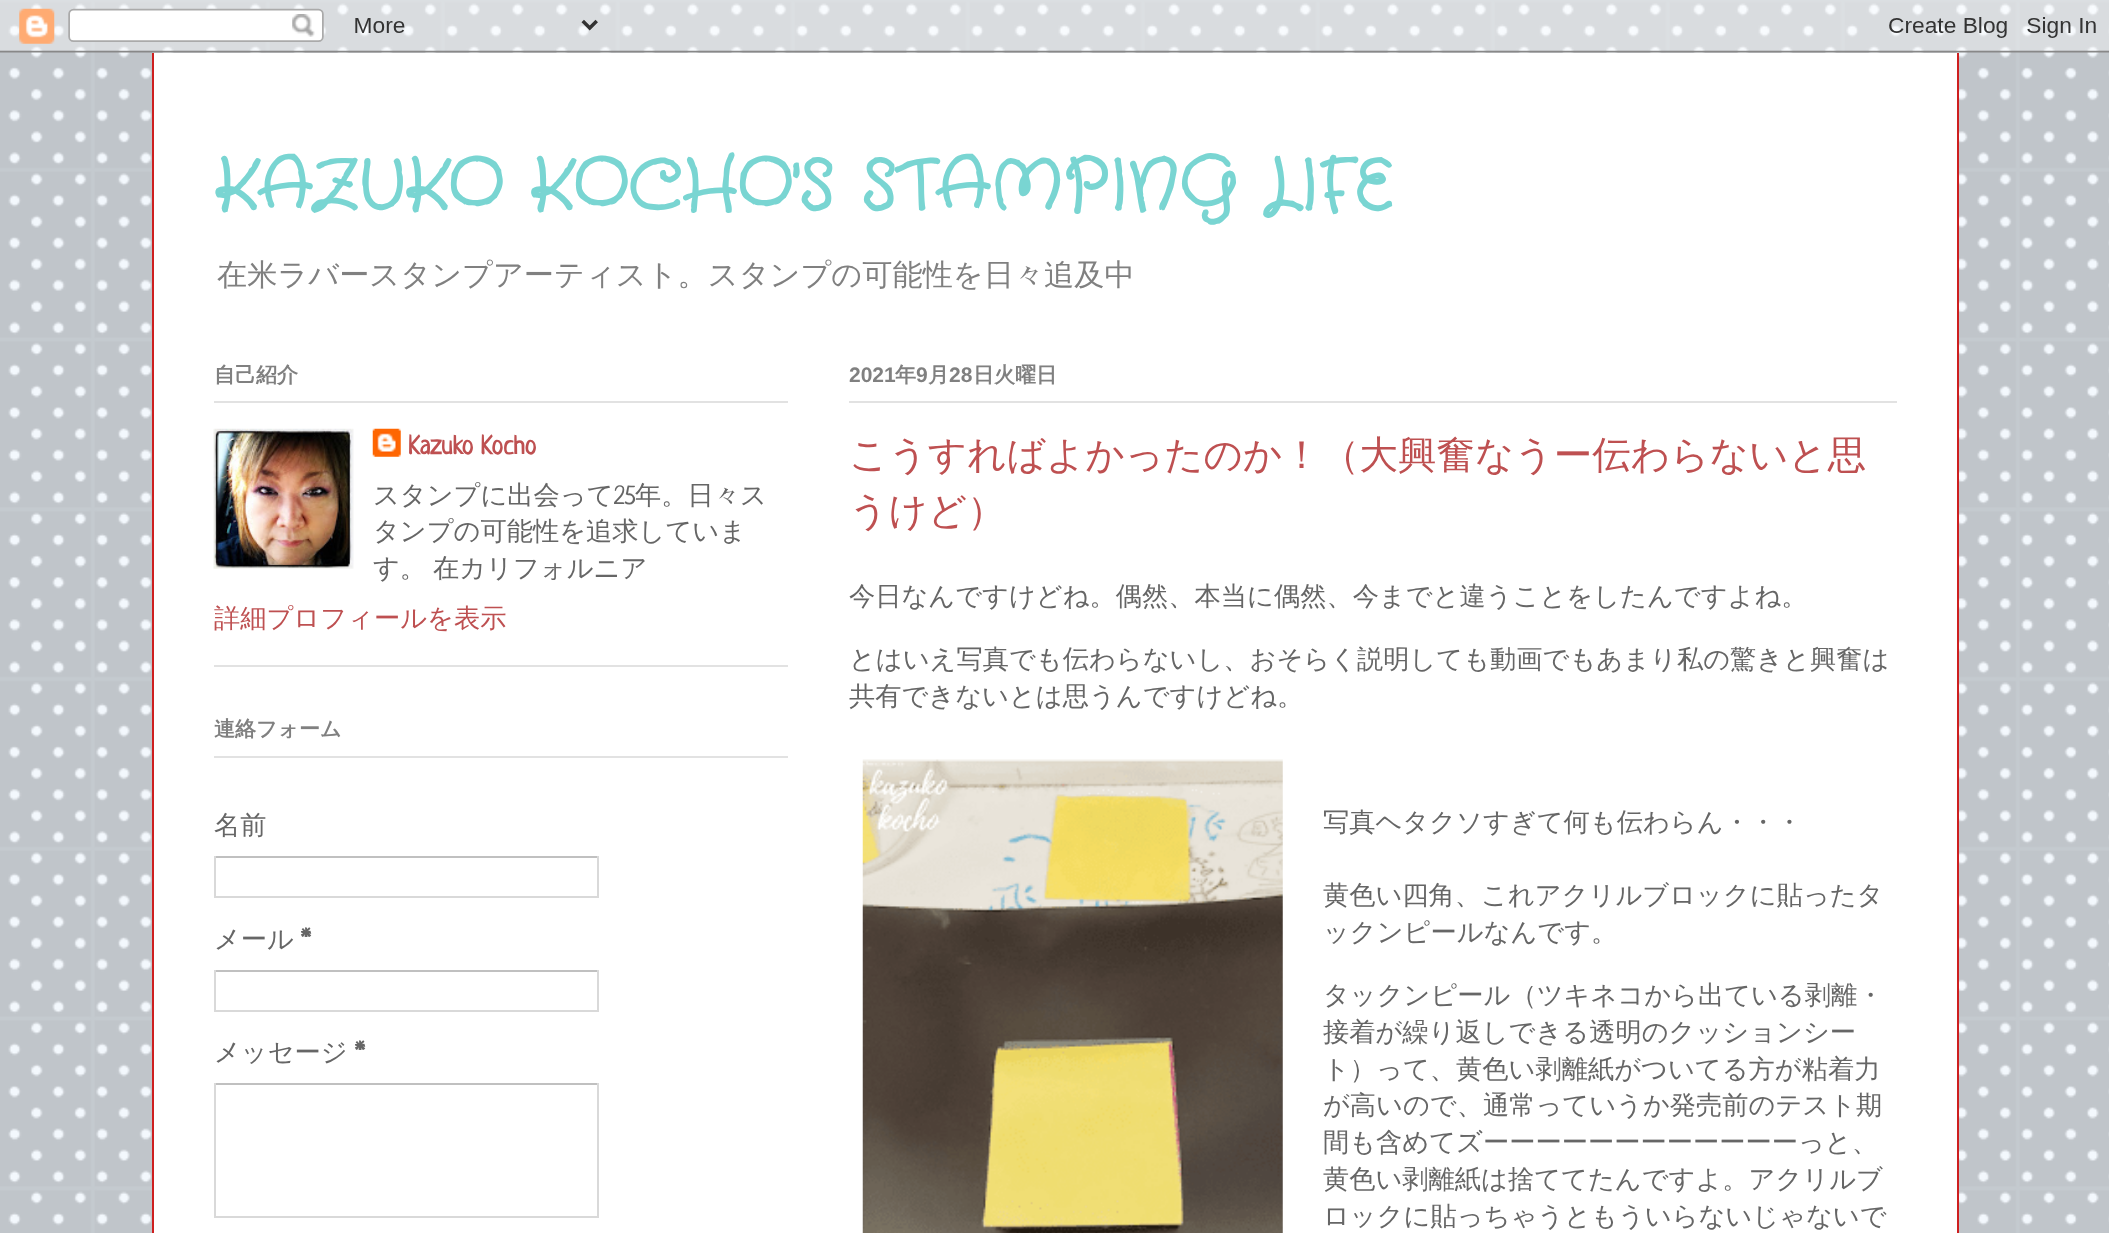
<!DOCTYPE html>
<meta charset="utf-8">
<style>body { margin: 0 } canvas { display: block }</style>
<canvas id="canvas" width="2109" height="1233"></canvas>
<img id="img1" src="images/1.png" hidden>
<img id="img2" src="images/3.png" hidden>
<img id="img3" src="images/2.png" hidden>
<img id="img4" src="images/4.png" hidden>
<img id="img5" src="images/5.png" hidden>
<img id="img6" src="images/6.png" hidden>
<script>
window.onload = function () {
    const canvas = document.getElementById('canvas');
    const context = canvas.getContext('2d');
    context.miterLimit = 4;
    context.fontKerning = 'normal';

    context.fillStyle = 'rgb(240, 247, 253)';
    context.fillRect(0, 0, 2109, 1233);
    context.drawImage(document.getElementById('img1'), 0, 0, 2109, 1233);
    context.fillStyle = 'rgb(255, 255, 255)';
    context.fillRect(154, 64, 1803, 1169);
    context.drawImage(document.getElementById('img2'), 152, 52, 1807, 716);
    context.drawImage(document.getElementById('img3'), 0, 0, 2109, 53);
    context.fillStyle = 'rgb(206, 31, 31)';
    context.fillRect(1957, 53, 2, 1180);
    context.fillRect(152, 53, 2, 1180);
    context.fillStyle = 'rgb(226, 226, 226)';
    context.fillRect(214, 665, 574, 2);
    context.fillRect(214, 401, 574, 2);
    context.drawImage(document.getElementById('img4'), 213, 428, 141, 141);
    context.drawImage(document.getElementById('img5'), 372, 428, 29, 29);
    context.fillRect(214, 756, 574, 2);
    context.fillStyle = 'rgb(192, 192, 192)';
    context.fillRect(214, 856, 385, 2);
    context.fillStyle = 'rgb(217, 217, 217)';
    context.fillRect(597, 856, 2, 42);
    context.fillRect(214, 896, 385, 2);
    context.fillRect(214, 856, 2, 42);
    context.fillStyle = 'rgb(192, 192, 192)';
    context.fillRect(214, 970, 385, 2);
    context.fillStyle = 'rgb(217, 217, 217)';
    context.fillRect(597, 970, 2, 42);
    context.fillRect(214, 1010, 385, 2);
    context.fillRect(214, 970, 2, 42);
    context.fillStyle = 'rgb(192, 192, 192)';
    context.fillRect(214, 1083, 385, 2);
    context.fillStyle = 'rgb(217, 217, 217)';
    context.fillRect(597, 1083, 2, 135);
    context.fillRect(214, 1216, 385, 2);
    context.fillRect(214, 1083, 2, 135);
    context.fillStyle = 'rgb(226, 226, 226)';
    context.fillRect(849, 401, 1048, 2);
    context.drawImage(document.getElementById('img6'), 862, 759, 421, 474);
    context.font = 'bold 70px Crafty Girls';
    context.fillStyle = 'rgb(121, 213, 210)';
    context.fillText('KAZUKO KOCHO\'S STAMPING LIFE', 214, 207);
    context.font = '500 30.2px WenQuanYi Zen Hei';
    context.fillStyle = 'rgb(128, 128, 128)';
    context.fillText('在米ラバースタンプアーティスト。スタンプの可能性を日々追及中', 217, 285);
    context.font = 'bold 21px WenQuanYi Zen Hei';
    context.fillText('自己紹介', 214, 382);
    context.font = 'bold 26.25px Neucha';
    context.fillStyle = 'rgb(190, 80, 81)';
    context.fillText('Kazuko Kocho', 408, 454);
    context.font = '500 26.25px WenQuanYi Zen Hei';
    context.fillStyle = 'rgb(102, 102, 102)';
    context.fillText('スタンプに出会って', 373, 504);
    context.font = '26.25px Neucha';
    context.fillText('25', 614, 504);
    context.font = '500 26.25px WenQuanYi Zen Hei';
    context.fillText('年。日々ス', 635, 504);
    context.fillText('タンプの可能性を追求していま', 373, 540);
    context.wordSpacing = '-1px';
    context.fillText('す。 在カリフォルニア', 373, 577);
    context.wordSpacing = '0px';
    context.fillStyle = 'rgb(190, 80, 81)';
    context.fillText('詳細プロフィールを表示', 214, 627);
    context.font = 'bold 21px WenQuanYi Zen Hei';
    context.fillStyle = 'rgb(128, 128, 128)';
    context.fillText('連絡フォーム', 214, 736);
    context.font = '500 26.25px WenQuanYi Zen Hei';
    context.fillStyle = 'rgb(102, 102, 102)';
    context.fillText('名前', 214, 834);
    context.fillText('メール', 214, 948);
    context.font = 'bold 26.25px Neucha';
    context.fillText('*', 301, 948);
    context.font = '500 26.25px WenQuanYi Zen Hei';
    context.fillText('メッセージ', 214, 1061);
    context.font = 'bold 26.25px Neucha';
    context.fillText('*', 355, 1061);
    context.font = 'bold 21px Liberation Sans';
    context.fillStyle = 'rgb(128, 128, 128)';
    context.fillText('2021', 849, 382);
    context.font = 'bold 21px WenQuanYi Zen Hei';
    context.fillText('年', 895, 382);
    context.font = 'bold 21px Liberation Sans';
    context.fillText('9', 916, 382);
    context.font = 'bold 21px WenQuanYi Zen Hei';
    context.fillText('月', 928, 382);
    context.font = 'bold 21px Liberation Sans';
    context.fillText('28', 949, 382);
    context.font = 'bold 21px WenQuanYi Zen Hei';
    context.fillText('日火曜日', 973, 382);
    context.font = '500 38.5px WenQuanYi Zen Hei';
    context.fillStyle = 'rgb(190, 80, 81)';
    context.fillText('こうすればよかったのか！（大興奮なうー伝わらないと思', 849, 468);
    context.fillText('うけど）', 849, 524);
    context.font = '500 26.25px WenQuanYi Zen Hei';
    context.fillStyle = 'rgb(102, 102, 102)';
    context.fillText('今日なんですけどね。偶然、本当に偶然、今までと違うことをしたんですよね。', 849, 605);
    context.fillText('とはいえ写真でも伝わらないし、おそらく説明しても動画でもあまり私の驚きと興奮は', 849, 668);
    context.fillText('共有できないとは思うんですけどね。', 849, 705);
    context.fillText('写真ヘタクソすぎて何も伝わらん・・・', 1323, 831);
    context.fillText('黄色い四角、これアクリルブロックに貼ったタ', 1323, 904);
    context.fillText('ックンピールなんです。', 1323, 941);
    context.fillText('タックンピール（ツキネコから出ている剥離・', 1323, 1004);
    context.fillText('接着が繰り返しできる透明のクッションシー', 1323, 1041);
    context.fillText('ト）って、黄色い剥離紙がついてる方が粘着力', 1323, 1078);
    context.fillText('が高いので、通常っていうか発売前のテスト期', 1323, 1114);
    context.fillText('間も含めてズーーーーーーーーーーーーっと、', 1323, 1151);
    context.fillText('黄色い剥離紙は捨ててたんですよ。アクリルブ', 1323, 1188);
    context.fillText('ロックに貼っちゃうともういらないじゃないで', 1323, 1225);
};
</script>
